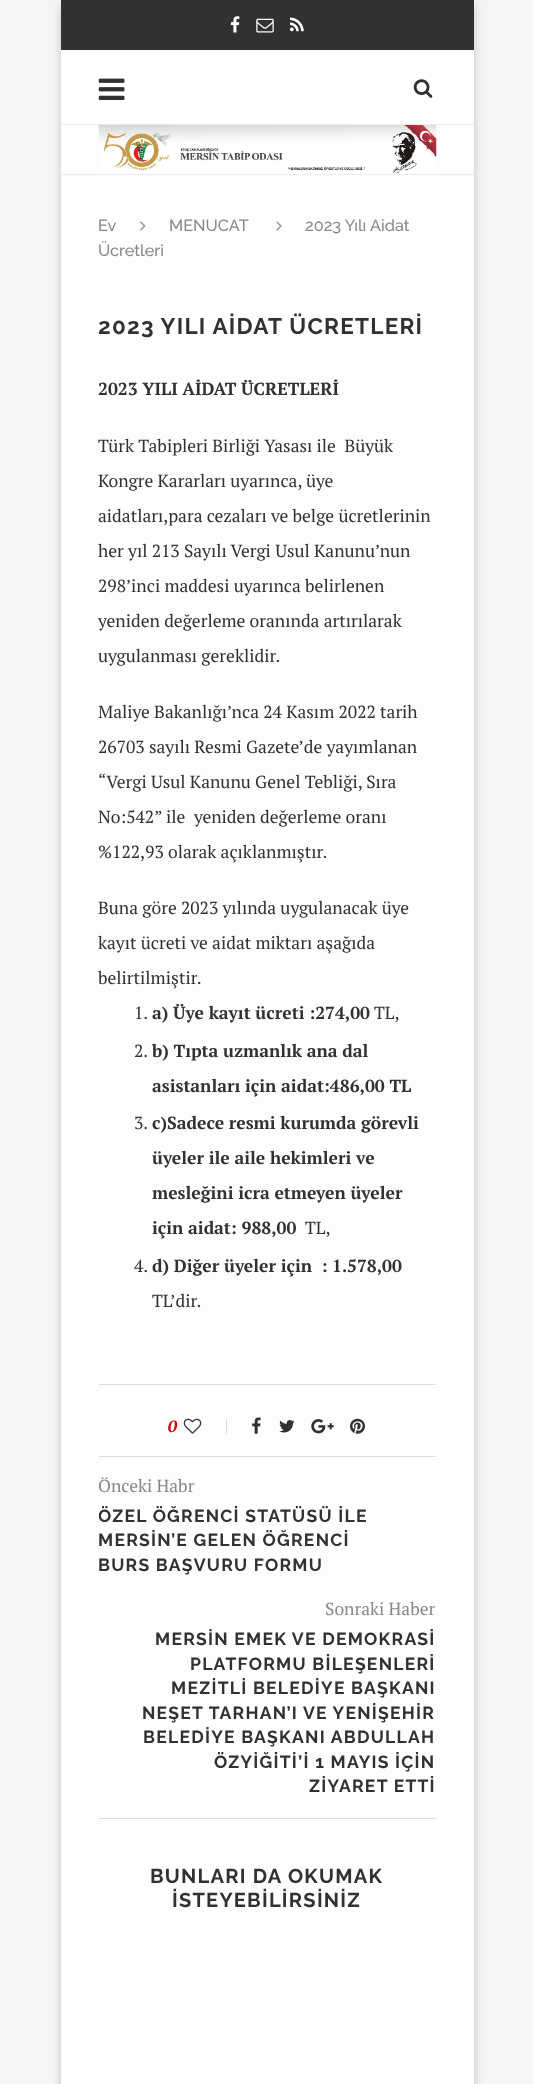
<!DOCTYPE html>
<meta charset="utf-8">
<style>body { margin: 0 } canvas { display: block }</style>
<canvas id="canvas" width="533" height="2084"></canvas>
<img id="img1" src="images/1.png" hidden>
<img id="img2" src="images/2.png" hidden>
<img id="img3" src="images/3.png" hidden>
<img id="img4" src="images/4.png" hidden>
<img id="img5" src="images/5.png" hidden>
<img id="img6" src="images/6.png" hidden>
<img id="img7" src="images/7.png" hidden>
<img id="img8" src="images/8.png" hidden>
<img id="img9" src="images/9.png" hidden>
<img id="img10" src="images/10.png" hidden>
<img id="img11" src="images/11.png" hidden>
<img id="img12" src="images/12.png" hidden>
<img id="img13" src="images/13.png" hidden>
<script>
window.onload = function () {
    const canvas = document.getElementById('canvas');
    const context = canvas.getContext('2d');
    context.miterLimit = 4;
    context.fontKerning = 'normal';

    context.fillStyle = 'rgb(245, 245, 245)';
    context.fillRect(0, 0, 533, 2084);
    context.save();
    context.beginPath();
    context.moveTo(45, 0);
    context.lineTo(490, 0);
    context.lineTo(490, 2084);
    context.lineTo(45, 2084);
    context.closePath();
    context.moveTo(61, 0);
    context.lineTo(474, 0);
    context.lineTo(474, 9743);
    context.lineTo(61, 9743);
    context.closePath();
    context.clip('evenodd');
    context.fillStyle = 'rgba(0, 0, 0, 0.2)';
    context.filter = 'blur(5px)';
    context.beginPath();
    context.rect(61, 6, 413, 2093);
    context.fill();
    context.filter = 'none';
    context.restore();
    context.fillStyle = 'rgba(255, 255, 255, 0.8)';
    context.fillRect(61, 125, 413, 1959);
    context.fillStyle = 'rgb(49, 49, 49)';
    context.fillRect(61, 0, 413, 50);
    context.drawImage(document.getElementById('img1'), 230, 16, 10, 17);
    context.drawImage(document.getElementById('img2'), 256, 18, 18, 15);
    context.drawImage(document.getElementById('img3'), 290, 17, 14, 15);
    context.fillStyle = 'rgb(255, 255, 255)';
    context.fillRect(61, 50, 413, 74);
    context.fillStyle = 'rgb(236, 236, 236)';
    context.fillRect(61, 124, 413, 1);
    context.drawImage(document.getElementById('img4'), 98, 78, 27, 22);
    context.drawImage(document.getElementById('img5'), 413, 79, 20, 19);
    context.fillRect(61, 174, 413, 1);
    context.drawImage(document.getElementById('img6'), 98, 125, 339, 49);
    context.drawImage(document.getElementById('img7'), 140, 221, 6, 10);
    context.drawImage(document.getElementById('img8'), 276, 221, 6, 10);
    context.fillStyle = 'rgb(222, 222, 222)';
    context.fillRect(99, 1384, 337, 1);
    context.drawImage(document.getElementById('img9'), 183, 1418, 19, 16);
    context.fillRect(226, 1419, 1, 15);
    context.drawImage(document.getElementById('img10'), 252, 1417, 9, 17);
    context.drawImage(document.getElementById('img11'), 279, 1420, 16, 13);
    context.drawImage(document.getElementById('img12'), 311, 1419, 23, 15);
    context.drawImage(document.getElementById('img13'), 350, 1418, 15, 16);
    context.fillRect(99, 1456, 337, 1);
    context.fillRect(99, 1818, 337, 1);
    context.font = '500 16.25px Raleway';
    context.fillStyle = 'rgb(136, 136, 136)';
    context.fillText('Ev', 98, 231);
    context.fillText('MENUCAT', 169, 231);
    context.fillText('2023 Yılı Aidat', 305, 231);
    context.fillText('Ücretleri', 98, 256);
    context.letterSpacing = '1.25px';
    context.font = 'bold 22.5px Raleway';
    context.fillStyle = 'rgb(49, 49, 49)';
    context.fillText('2023 YILI AİDAT ÜCRETLERİ', 98, 334);
    context.letterSpacing = '0px';
    context.font = 'bold 17.5px PT Serif';
    context.fillText('2023 YILI AİDAT ÜCRETLERİ', 98, 395);
    context.font = '17.5px PT Serif';
    context.fillText('Türk Tabipleri Birliği Yasası ile  Büyük', 98, 452);
    context.fillText('Kongre Kararları uyarınca, üye', 98, 487);
    context.fillText('aidatları,para cezaları ve belge ücretlerinin', 98, 522);
    context.fillText('her yıl 213 Sayılı Vergi Usul Kanunu’nun', 98, 557);
    context.fillText('298’inci maddesi uyarınca belirlenen', 98, 592);
    context.fillText('yeniden değerleme oranında artırılarak', 98, 627);
    context.fillText('uygulanması gereklidir.', 98, 662);
    context.fillText('Maliye Bakanlığı’nca 24 Kasım 2022 tarih', 98, 718);
    context.fillText('26703 sayılı Resmi Gazete’de yayımlanan', 98, 753);
    context.fillText('“Vergi Usul Kanunu Genel Tebliği, Sıra', 98, 788);
    context.fillText('No:542” ile  yeniden değerleme oranı', 98, 823);
    context.fillText('%122,93 olarak açıklanmıştır.', 98, 858);
    context.fillText('Buna göre 2023 yılında uygulanacak üye', 98, 914);
    context.fillText('kayıt ücreti ve aidat miktarı aşağıda', 98, 949);
    context.fillText('belirtilmiştir.', 98, 984);
    context.fillText('1.', 134, 1019);
    context.font = 'bold 17.5px PT Serif';
    context.fillText('a) Üye kayıt ücreti :274,00', 152, 1019);
    context.font = '17.5px PT Serif';
    context.fillText('TL,', 374, 1019);
    context.fillText('2.', 134, 1057);
    context.font = 'bold 17.5px PT Serif';
    context.fillText('b) Tıpta uzmanlık ana dal', 152, 1057);
    context.fillText('asistanları için aidat:486,00 TL', 152, 1092);
    context.font = '17.5px PT Serif';
    context.fillText('3.', 134, 1129);
    context.font = 'bold 17.5px PT Serif';
    context.fillText('c)Sadece resmi kurumda görevli', 152, 1129);
    context.fillText('üyeler ile aile hekimleri ve', 152, 1164);
    context.fillText('mesleğini icra etmeyen üyeler', 152, 1199);
    context.fillText('için aidat: 988,00', 152, 1234);
    context.font = '17.5px PT Serif';
    context.fillText('TL,', 305, 1234);
    context.fillText('4.', 134, 1272);
    context.font = 'bold 17.5px PT Serif';
    context.fillText('d) Diğer üyeler için  :', 152, 1272);
    context.fillText('1.578,00', 332, 1272);
    context.font = '17.5px PT Serif';
    context.fillText('TL’dir.', 152, 1307);
    context.font = 'italic bold 16.25px PT Serif';
    context.fillStyle = 'rgb(221, 0, 0)';
    context.fillText('0', 168, 1432);
    context.font = '17.5px PT Serif';
    context.fillStyle = 'rgb(136, 136, 136)';
    context.fillText('Önceki Habr', 98, 1492);
    context.save();
    context.beginPath();
    context.rect(99, 1458, 337, 360);
    context.clip();
    context.letterSpacing = '1.25px';
    context.font = 'bold 17.5px Raleway';
    context.fillStyle = 'rgb(49, 49, 49)';
    context.fillText('ÖZEL ÖĞRENCİ STATÜSÜ İLE', 98, 1522);
    context.restore();
    context.letterSpacing = '1.25px';
    context.font = 'bold 17.5px Raleway';
    context.fillStyle = 'rgb(49, 49, 49)';
    context.fillText('MERSİN’E GELEN ÖĞRENCİ', 98, 1546);
    context.fillText('BURS BAŞVURU FORMU', 98, 1571);
    context.letterSpacing = '0px';
    context.font = '17.5px PT Serif';
    context.fillStyle = 'rgb(136, 136, 136)';
    context.fillText('Sonraki Haber', 325, 1615);
    context.letterSpacing = '1.25px';
    context.font = 'bold 17.5px Raleway';
    context.fillStyle = 'rgb(49, 49, 49)';
    context.fillText('MERSİN EMEK VE DEMOKRASİ', 155, 1645);
    context.fillText('PLATFORMU BİLEŞENLERİ', 190, 1670);
    context.fillText('MEZİTLİ BELEDİYE BAŞKANI', 171, 1694);
    context.fillText('NEŞET TARHAN’I VE YENİŞEHİR', 142, 1719);
    context.fillText('BELEDİYE BAŞKANI ABDULLAH', 143, 1743);
    context.fillText('ÖZYİĞİTİ’İ 1 MAYIS İÇİN', 214, 1768);
    context.fillText('ZİYARET ETTİ', 309, 1792);
    context.font = 'bold 20px Raleway';
    context.fillText('BUNLARI DA OKUMAK', 150, 1883);
    context.fillText('İSTEYEBİLİRSİNİZ', 172, 1907);
};
</script>
